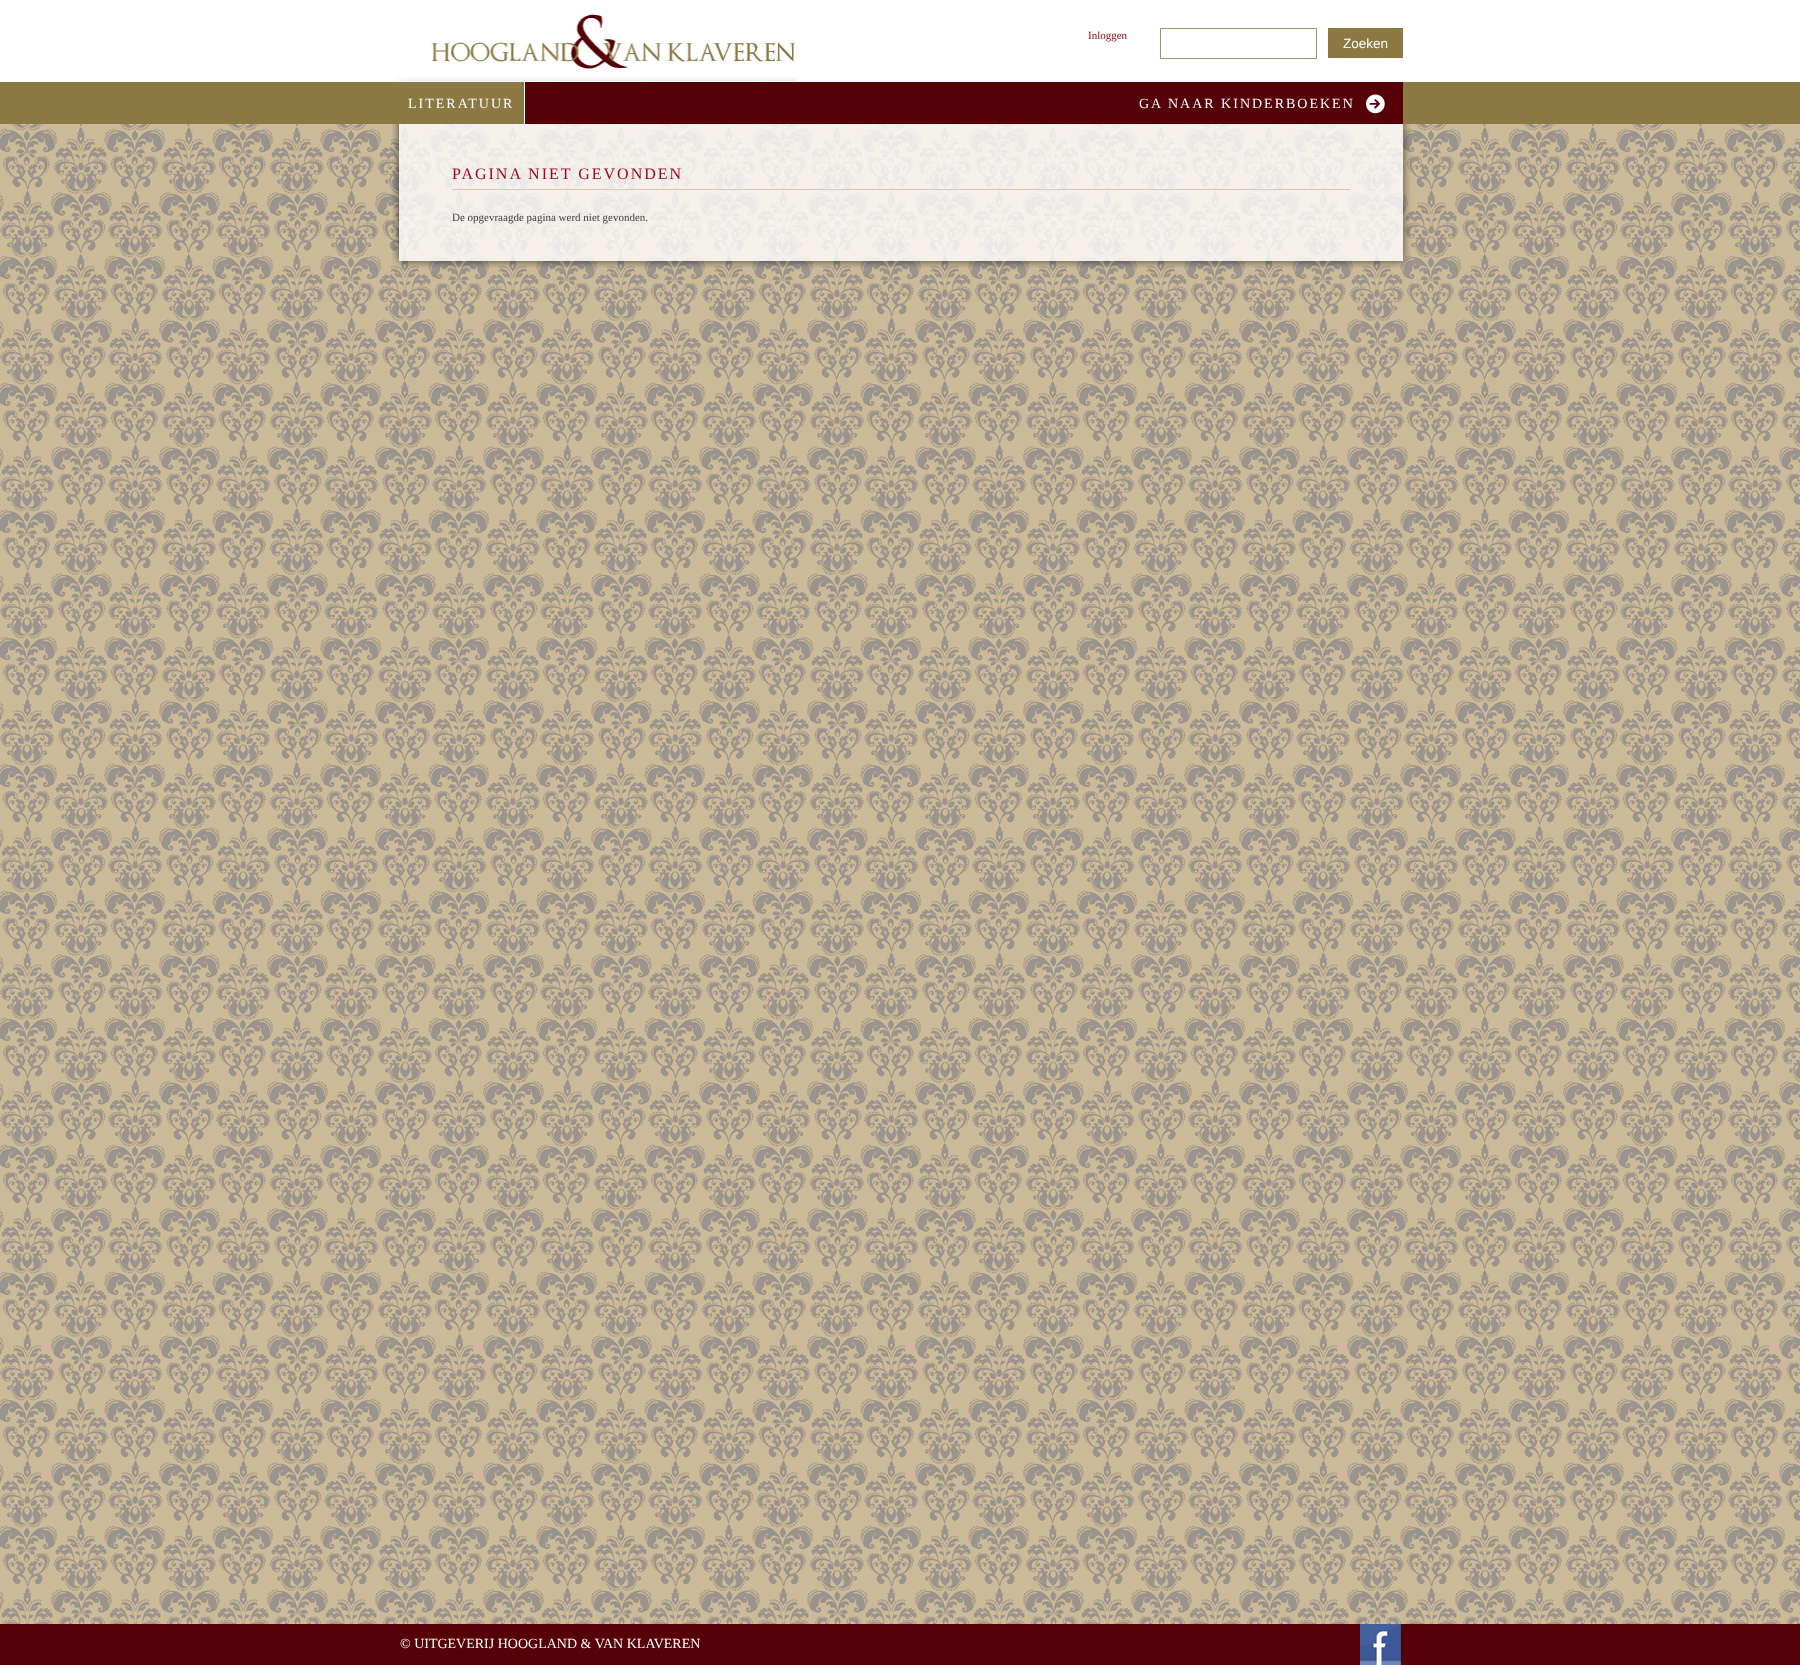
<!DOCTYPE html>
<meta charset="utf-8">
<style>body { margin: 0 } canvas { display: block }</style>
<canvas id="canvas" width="1800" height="1665"></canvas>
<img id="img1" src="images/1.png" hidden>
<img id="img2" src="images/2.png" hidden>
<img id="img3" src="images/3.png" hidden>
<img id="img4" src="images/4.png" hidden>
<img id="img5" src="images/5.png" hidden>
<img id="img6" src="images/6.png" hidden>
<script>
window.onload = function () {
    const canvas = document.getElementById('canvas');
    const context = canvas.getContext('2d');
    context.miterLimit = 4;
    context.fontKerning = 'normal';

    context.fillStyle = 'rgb(255, 255, 255)';
    context.fillRect(0, 0, 1800, 1665);
    context.drawImage(document.getElementById('img1'), 0, 124, 1800, 1500);
    context.drawImage(document.getElementById('img2'), 396, 14, 401, 67);
    context.strokeStyle = 'rgb(164, 146, 98)';
    context.strokeRect(1160.5, 28.5, 156, 30);
    context.fillStyle = 'rgb(140, 120, 67)';
    context.fillRect(1328, 28, 75, 30);
    context.fillStyle = 'rgb(140, 120, 66)';
    context.fillRect(0, 82, 1800, 42);
    context.fillStyle = 'rgb(86, 0, 7)';
    context.fillRect(525, 82, 878, 42);
    context.fillStyle = 'rgb(255, 255, 255)';
    context.fillRect(524, 82, 1, 42);
    context.drawImage(document.getElementById('img3'), 1366, 94, 19, 20);
    context.drawImage(document.getElementById('img4'), 392, 124, 1019, 129);
    context.fillStyle = 'rgb(213, 202, 182)';
    context.fillRect(452, 189, 898, 1);
    context.drawImage(document.getElementById('img5'), 392, 253, 1019, 15);
    context.fillStyle = 'rgb(86, 0, 7)';
    context.fillRect(0, 1624, 1800, 41);
    context.drawImage(document.getElementById('img6'), 1360, 1624, 41, 41);
    context.font = '11px Liberation Serif';
    context.fillStyle = 'rgb(142, 5, 15)';
    context.fillText('Inloggen', 1088, 39);
    context.font = '13.5px Liberation Sans';
    context.fillStyle = 'rgb(255, 255, 255)';
    context.fillText('Zoeken', 1343, 48);
    context.letterSpacing = '2px';
    context.font = '14px Liberation Serif';
    context.fillText('LITERATUUR', 408, 108);
    context.fillText('GA NAAR KINDERBOEKEN', 1139, 108);
    context.font = '16px Liberation Serif';
    context.fillStyle = 'rgb(163, 3, 31)';
    context.fillText('PAGINA NIET GEVONDEN', 452, 179);
    context.letterSpacing = '0px';
    context.font = '11px Liberation Serif';
    context.fillStyle = 'rgb(63, 61, 64)';
    context.fillText('De opgevraagde pagina werd niet gevonden.', 452, 221);
    context.font = '14px Liberation Serif';
    context.fillStyle = 'rgb(255, 255, 255)';
    context.fillText('© UITGEVERIJ HOOGLAND & VAN KLAVEREN', 400, 1648);
};
</script>
